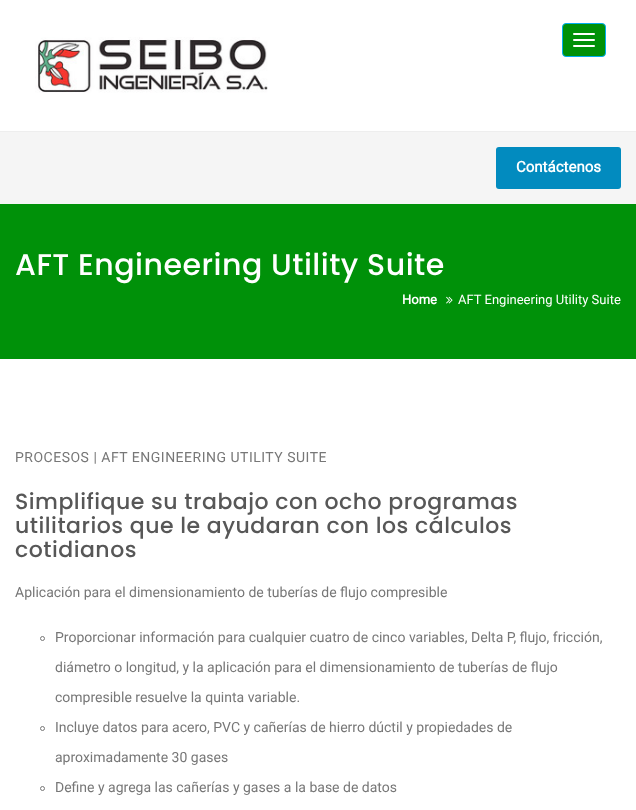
<!DOCTYPE html>
<meta charset="utf-8">
<style>body { margin: 0 } canvas { display: block }</style>
<canvas id="canvas" width="636" height="810"></canvas>
<img id="img1" src="images/1.png" hidden>
<img id="img2" src="images/2.png" hidden>
<script>
window.onload = function () {
    const canvas = document.getElementById('canvas');
    const context = canvas.getContext('2d');
    context.miterLimit = 4;
    context.fontKerning = 'normal';

    context.fillStyle = 'rgb(255, 255, 255)';
    context.fillRect(0, 0, 636, 810);
    context.fillStyle = 'rgb(238, 238, 238)';
    context.fillRect(0, 131, 636, 1);
    context.drawImage(document.getElementById('img1'), 35, 37, 233, 56);
    context.fillStyle = 'rgb(0, 145, 9)';
    context.beginPath();
    context.roundRect(562.5, 23.5, 43, 33, 3.5);
    context.fill();
    context.strokeStyle = 'rgb(0, 174, 240)';
    context.stroke();
    context.fillStyle = 'rgb(255, 255, 255)';
    context.beginPath();
    context.roundRect(573, 33, 22, 2, 1);
    context.fill();
    context.beginPath();
    context.roundRect(573, 39, 22, 2, 1);
    context.fill();
    context.beginPath();
    context.roundRect(573, 45, 22, 2, 1);
    context.fill();
    context.fillStyle = 'rgb(245, 245, 245)';
    context.fillRect(0, 132, 636, 72);
    context.fillStyle = 'rgb(2, 139, 191)';
    context.beginPath();
    context.roundRect(496, 147, 125, 42, 3);
    context.fill();
    context.fillStyle = 'rgb(0, 145, 9)';
    context.fillRect(0, 204, 636, 155);
    context.drawImage(document.getElementById('img2'), 446, 296, 7, 8);
    context.beginPath();
    context.arc(42.5, 638.5, 2, 0, 2 * Math.PI);
    context.strokeStyle = 'rgb(119, 119, 119)';
    context.stroke();
    context.beginPath();
    context.arc(42.5, 728.5, 2, 0, 2 * Math.PI);
    context.stroke();
    context.beginPath();
    context.arc(42.5, 788.5, 2, 0, 2 * Math.PI);
    context.stroke();
    context.font = 'bold 15px Roboto';
    context.fillStyle = 'rgb(255, 255, 255)';
    context.fillText('Contáctenos', 516, 172);
    context.letterSpacing = '0.5px';
    context.font = '500 30px Poppins';
    context.fillText('AFT Engineering Utility Suite', 15, 275);
    context.letterSpacing = '0px';
    context.font = 'bold 13px Roboto';
    context.fillText('Home', 402, 304);
    context.font = '13px Roboto';
    context.fillText('AFT Engineering Utility Suite', 458, 304);
    context.letterSpacing = '0.5px';
    context.font = '14px Roboto';
    context.fillStyle = 'rgb(119, 119, 119)';
    context.fillText('PROCESOS | AFT ENGINEERING UTILITY SUITE', 15, 462);
    context.font = '500 22px Poppins';
    context.fillStyle = 'rgb(87, 87, 87)';
    context.fillText('Simplifique su trabajo con ocho programas', 15, 509);
    context.fillText('utilitarios que le ayudaran con los cálculos', 15, 533);
    context.fillText('cotidianos', 15, 557);
    context.letterSpacing = '0px';
    context.font = '14px Roboto';
    context.fillStyle = 'rgb(119, 119, 119)';
    context.fillText('Aplicación para el dimensionamiento de tuberías de flujo compresible', 15, 597);
    context.fillText('Proporcionar información para cualquier cuatro de cinco variables, Delta P, flujo, fricción,', 55, 642);
    context.fillText('diámetro o longitud, y la aplicación para el dimensionamiento de tuberías de flujo', 55, 672);
    context.fillText('compresible resuelve la quinta variable.', 55, 702);
    context.fillText('Incluye datos para acero, PVC y cañerías de hierro dúctil y propiedades de', 55, 732);
    context.fillText('aproximadamente 30 gases', 55, 762);
    context.fillText('Define y agrega las cañerías y gases a la base de datos', 55, 792);
};
</script>
